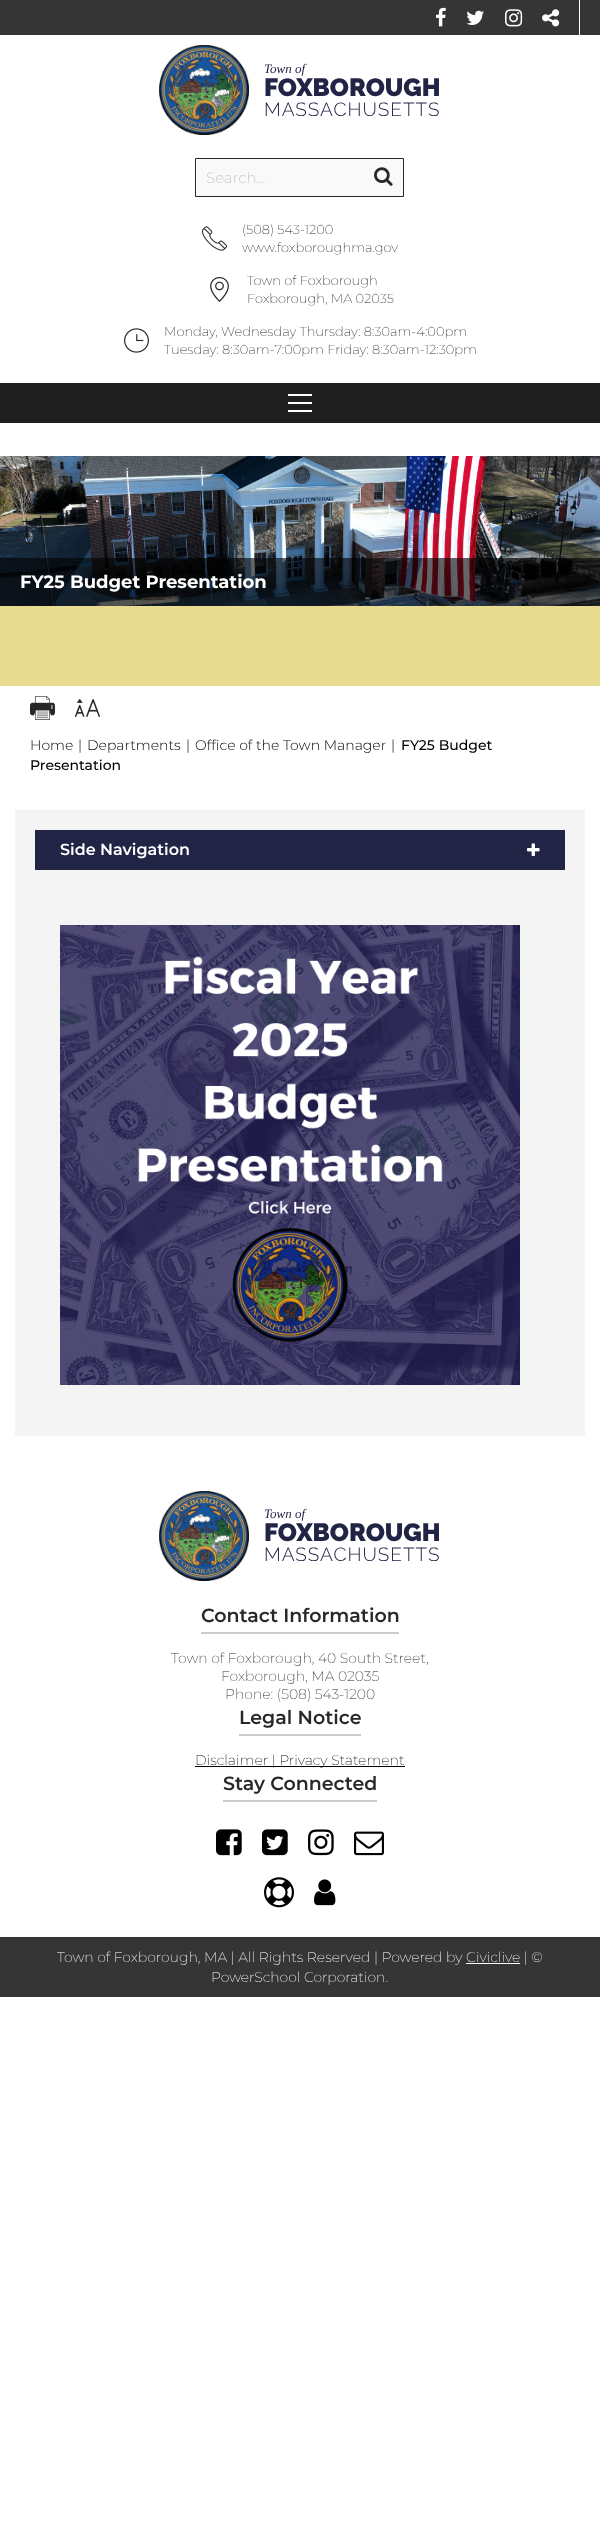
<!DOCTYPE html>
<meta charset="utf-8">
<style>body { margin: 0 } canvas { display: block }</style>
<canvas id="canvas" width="600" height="2534"></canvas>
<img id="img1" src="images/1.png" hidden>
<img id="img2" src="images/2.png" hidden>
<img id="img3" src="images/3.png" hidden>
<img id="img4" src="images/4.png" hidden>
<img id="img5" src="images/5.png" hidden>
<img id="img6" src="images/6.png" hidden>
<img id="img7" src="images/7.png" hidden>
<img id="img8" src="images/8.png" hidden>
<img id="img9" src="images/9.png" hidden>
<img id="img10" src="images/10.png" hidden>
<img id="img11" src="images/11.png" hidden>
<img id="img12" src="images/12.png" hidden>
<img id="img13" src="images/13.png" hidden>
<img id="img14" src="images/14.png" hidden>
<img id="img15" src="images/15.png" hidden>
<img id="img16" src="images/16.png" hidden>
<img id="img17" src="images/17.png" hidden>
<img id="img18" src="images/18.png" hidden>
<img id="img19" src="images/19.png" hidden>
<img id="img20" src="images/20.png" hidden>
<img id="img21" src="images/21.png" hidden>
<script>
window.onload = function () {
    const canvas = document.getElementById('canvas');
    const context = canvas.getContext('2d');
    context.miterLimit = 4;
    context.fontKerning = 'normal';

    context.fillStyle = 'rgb(255, 255, 255)';
    context.fillRect(0, 0, 600, 2534);
    context.fillStyle = 'rgb(53, 53, 53)';
    context.fillRect(0, 0, 600, 35);
    context.drawImage(document.getElementById('img1'), 436, 7, 10, 20);
    context.drawImage(document.getElementById('img2'), 466, 10, 18, 15);
    context.drawImage(document.getElementById('img3'), 505, 9, 18, 18);
    context.drawImage(document.getElementById('img4'), 542, 9, 18, 18);
    context.fillStyle = 'rgb(255, 255, 255)';
    context.fillRect(579, 0, 1, 35);
    context.drawImage(document.getElementById('img5'), 159, 45, 90, 90);
    context.fillStyle = 'rgb(249, 249, 250)';
    context.beginPath();
    context.rect(195.5, 158.5, 208, 38);
    context.fill();
    context.strokeStyle = 'rgb(40, 40, 40)';
    context.stroke();
    context.drawImage(document.getElementById('img6'), 374, 167, 19, 19);
    context.drawImage(document.getElementById('img7'), 202, 226, 25, 25);
    context.drawImage(document.getElementById('img8'), 210, 277, 19, 25);
    context.drawImage(document.getElementById('img9'), 124, 328, 25, 25);
    context.fillStyle = 'rgb(31, 31, 31)';
    context.fillRect(0, 383, 600, 40);
    context.fillStyle = 'rgb(255, 255, 255)';
    context.fillRect(288, 402, 24, 2);
    context.fillRect(288, 394, 24, 2);
    context.fillRect(288, 410, 24, 2);
    context.drawImage(document.getElementById('img10'), 0, 456, 600, 150);
    context.fillStyle = 'rgba(0, 0, 0, 0.6)';
    context.fillRect(0, 558, 600, 48);
    context.fillStyle = 'rgb(231, 220, 144)';
    context.fillRect(0, 606, 600, 80);
    context.drawImage(document.getElementById('img11'), 30, 696, 25, 24);
    context.drawImage(document.getElementById('img12'), 75, 699, 25, 18);
    context.fillStyle = 'rgb(244, 244, 245)';
    context.fillRect(15, 810, 570, 626);
    context.fillStyle = 'rgb(34, 36, 70)';
    context.fillRect(35, 830, 530, 40);
    context.drawImage(document.getElementById('img13'), 527, 843, 13, 13);
    context.drawImage(document.getElementById('img14'), 60, 925, 460, 460);
    context.drawImage(document.getElementById('img15'), 159, 1491, 90, 90);
    context.fillStyle = 'rgb(204, 204, 204)';
    context.fillRect(201, 1632, 198, 2);
    context.fillRect(239, 1734, 122, 2);
    context.fillStyle = 'rgb(0, 0, 0)';
    context.fillRect(195, 1766, 210, 1);
    context.fillStyle = 'rgb(204, 204, 204)';
    context.fillRect(223, 1800, 154, 2);
    context.drawImage(document.getElementById('img16'), 216, 1829, 26, 27);
    context.drawImage(document.getElementById('img17'), 262, 1829, 26, 27);
    context.drawImage(document.getElementById('img18'), 308, 1829, 26, 27);
    context.drawImage(document.getElementById('img19'), 354, 1831, 30, 25);
    context.drawImage(document.getElementById('img20'), 264, 1877, 30, 31);
    context.drawImage(document.getElementById('img21'), 314, 1879, 22, 27);
    context.fillStyle = 'rgb(53, 53, 53)';
    context.fillRect(0, 1937, 600, 60);
    context.fillStyle = 'rgb(255, 255, 255)';
    context.fillRect(466, 1963, 54, 1);
    context.font = 'italic 13px Liberation Serif';
    context.fillStyle = 'rgb(34, 36, 70)';
    context.fillText('Town of', 264, 73);
    context.font = '900 25px Raleway';
    context.fillText('FOXBOROUGH', 264, 96);
    context.letterSpacing = '1px';
    context.font = '300 19px Raleway';
    context.fillText('MASSACHUSETTS', 264, 116);
    context.letterSpacing = '0px';
    context.font = '300 15px Montserrat';
    context.fillStyle = 'rgb(204, 204, 204)';
    context.fillText('Search...', 206, 183);
    context.font = '200 13px Montserrat';
    context.fillStyle = 'rgb(40, 40, 40)';
    context.fillText('(508) 543-1200', 242, 234);
    context.fillText('www.foxboroughma.gov', 242, 252);
    context.fillText('Town of Foxborough', 247, 285);
    context.fillText('Foxborough, MA 02035', 247, 303);
    context.fillText('Monday, Wednesday Thursday: 8:30am-4:00pm', 164, 336);
    context.fillText('Tuesday: 8:30am-7:00pm Friday: 8:30am-12:30pm', 164, 354);
    context.font = 'bold 18px Montserrat';
    context.fillStyle = 'rgb(255, 255, 255)';
    context.fillText('FY25 Budget Presentation', 20, 588);
    context.font = '300 14px Montserrat';
    context.fillStyle = 'rgb(0, 0, 0)';
    context.fillText('Home', 30, 750);
    context.fillText('|', 78, 750);
    context.fillText('Departments', 87, 750);
    context.fillText('|', 186, 750);
    context.fillText('Office of the Town Manager', 195, 750);
    context.fillText('|', 391, 750);
    context.font = '500 14px Montserrat';
    context.fillText('FY25 Budget', 401, 750);
    context.fillText('Presentation', 30, 770);
    context.font = '600 16px Montserrat';
    context.fillStyle = 'rgb(255, 255, 255)';
    context.fillText('Side Navigation', 60, 855);
    context.font = 'italic 13px Liberation Serif';
    context.fillStyle = 'rgb(34, 36, 70)';
    context.fillText('Town of', 264, 1518);
    context.font = '900 25px Raleway';
    context.fillText('FOXBOROUGH', 264, 1541);
    context.letterSpacing = '1px';
    context.font = '300 19px Raleway';
    context.fillText('MASSACHUSETTS', 264, 1561);
    context.letterSpacing = '0px';
    context.font = '600 19px Montserrat';
    context.fillStyle = 'rgb(40, 40, 40)';
    context.fillText('Contact Information', 201, 1622);
    context.font = '200 14px Montserrat';
    context.fillText('Town of Foxborough, 40 South Street,', 171, 1663);
    context.fillText('Foxborough, MA 02035', 221, 1681);
    context.fillText('Phone: (508) 543-1200', 225, 1699);
    context.font = '600 19px Montserrat';
    context.fillText('Legal Notice', 239, 1724);
    context.font = '200 14px Montserrat';
    context.fillStyle = 'rgb(0, 0, 0)';
    context.fillText('Disclaimer | Privacy Statement', 195, 1765);
    context.font = '600 19px Montserrat';
    context.fillStyle = 'rgb(40, 40, 40)';
    context.fillText('Stay Connected', 223, 1790);
    context.font = '200 14px Montserrat';
    context.fillStyle = 'rgb(255, 255, 255)';
    context.fillText('Town of Foxborough, MA | All Rights Reserved | Powered by Civiclive | ©', 57, 1962);
    context.fillText('PowerSchool Corporation.', 211, 1982);
};
</script>
